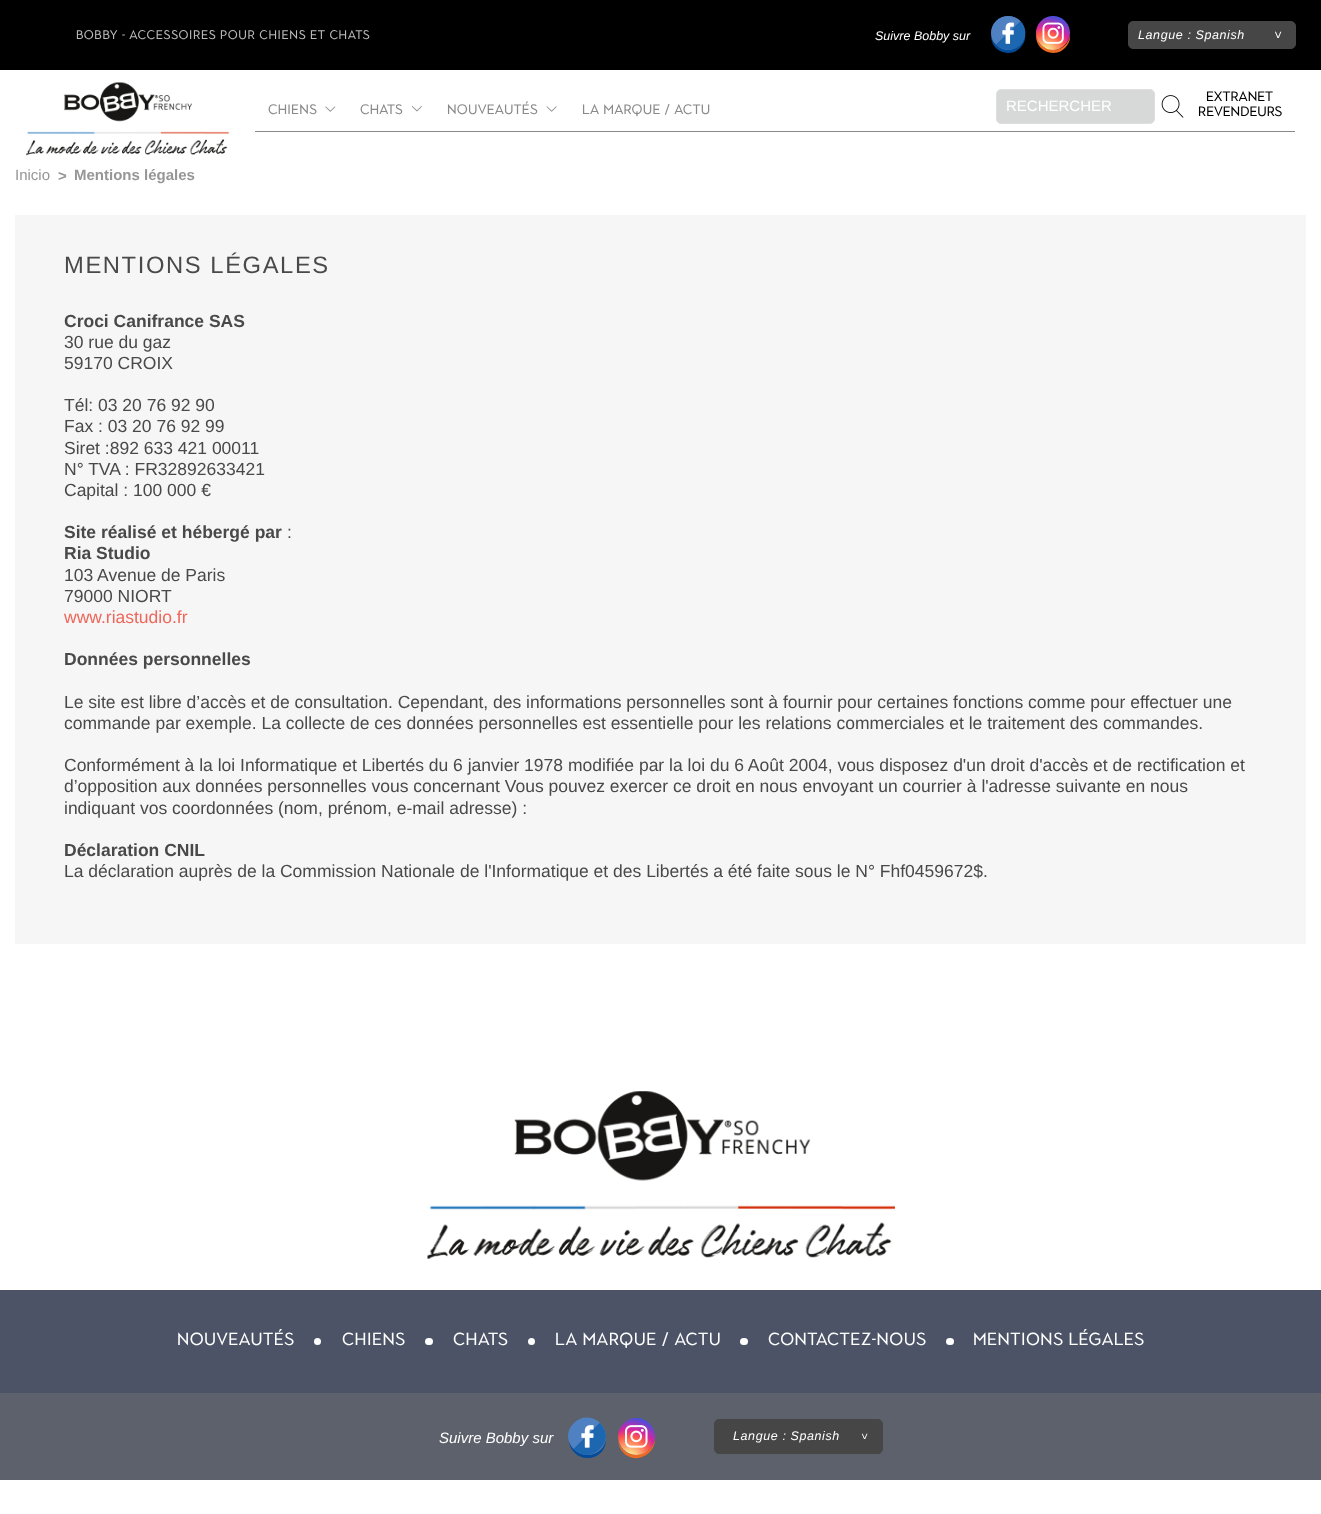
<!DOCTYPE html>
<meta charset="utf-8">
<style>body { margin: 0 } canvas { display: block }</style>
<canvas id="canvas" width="1321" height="1514"></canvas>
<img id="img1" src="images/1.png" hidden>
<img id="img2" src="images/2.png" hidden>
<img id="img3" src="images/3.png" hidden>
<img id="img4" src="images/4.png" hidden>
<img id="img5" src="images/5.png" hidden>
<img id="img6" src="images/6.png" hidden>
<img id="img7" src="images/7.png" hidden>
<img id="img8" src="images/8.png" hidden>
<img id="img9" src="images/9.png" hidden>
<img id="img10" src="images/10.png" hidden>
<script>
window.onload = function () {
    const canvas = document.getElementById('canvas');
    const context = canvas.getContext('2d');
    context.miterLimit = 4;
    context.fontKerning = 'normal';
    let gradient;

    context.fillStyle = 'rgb(255, 255, 255)';
    context.fillRect(0, 0, 1321, 1514);
    context.fillStyle = 'rgb(0, 0, 0)';
    context.fillRect(0, 0, 1321, 70);
    context.fillStyle = 'rgb(0, 75, 155)';
    context.beginPath();
    context.moveTo(1025, 34.5);
    context.bezierCurveTo(1023, 56, 991, 54.5, 991.5, 33);
    context.bezierCurveTo(988, 51, 1012, 60.5, 1022, 45.5);
    context.bezierCurveTo(1024.5, 42.5, 1025.5, 38.5, 1025, 34.5);
    context.closePath();
    context.fill();
    context.fillStyle = 'rgb(79, 129, 194)';
    context.beginPath();
    context.arc(1008, 33, 17, 0, 2 * Math.PI);
    context.fill();
    gradient = context.createLinearGradient(997, 21, 1020, 45);
    gradient.addColorStop(0, 'rgb(79, 129, 194)');
    gradient.addColorStop(0.46, 'rgb(80, 129, 194)');
    gradient.addColorStop(0.48, 'rgb(72, 126, 192)');
    gradient.addColorStop(0.5, 'rgb(37, 106, 179)');
    gradient.addColorStop(0.52, 'rgb(22, 98, 174)');
    gradient.addColorStop(0.54, 'rgb(29, 102, 176)');
    gradient.addColorStop(0.98, 'rgb(29, 102, 176)');
    gradient.addColorStop(1, 'rgb(31, 104, 178)');
    context.fillStyle = gradient;
    context.beginPath();
    context.moveTo(996.5, 21);
    context.bezierCurveTo(1003, 14.5, 1014, 14.5, 1020.5, 21);
    context.bezierCurveTo(1027, 28, 1027, 38.5, 1020.5, 45);
    context.bezierCurveTo(1014, 51.5, 1003, 51.5, 996.5, 45);
    context.bezierCurveTo(990, 38.5, 990, 28, 996.5, 21);
    context.closePath();
    context.fill();
    context.drawImage(document.getElementById('img1'), 1002, 22, 12, 22);
    context.fillStyle = 'rgb(237, 106, 35)';
    context.beginPath();
    context.moveTo(1070, 34.5);
    context.bezierCurveTo(1068, 56, 1036.5, 54.5, 1036.5, 33);
    context.bezierCurveTo(1033, 51, 1057, 60.5, 1067, 45.5);
    context.bezierCurveTo(1069.5, 42.5, 1070.5, 38.5, 1070, 34.5);
    context.closePath();
    context.fill();
    gradient = context.createRadialGradient(1046, 52, 0, 1046, 52, 43);
    gradient.addColorStop(0, 'rgb(253, 244, 151)');
    gradient.addColorStop(0.05, 'rgb(253, 244, 151)');
    gradient.addColorStop(0.45, 'rgb(253, 89, 73)');
    gradient.addColorStop(0.6, 'rgb(214, 36, 159)');
    gradient.addColorStop(0.9, 'rgb(40, 90, 235)');
    context.fillStyle = gradient;
    context.beginPath();
    context.arc(1053, 33, 17, 0, 2 * Math.PI);
    context.fill();
    context.drawImage(document.getElementById('img2'), 1042, 22, 22, 22);
    context.fillStyle = 'rgb(70, 70, 70)';
    context.beginPath();
    context.roundRect(1128.5, 21.5, 167, 27, 4.5);
    context.fill();
    context.strokeStyle = 'rgb(70, 70, 70)';
    context.stroke();
    context.drawImage(document.getElementById('img3'), 26, 82, 203, 74);
    context.fillStyle = 'rgb(137, 137, 137)';
    context.fillRect(255, 131, 1040, 1);
    context.drawImage(document.getElementById('img4'), 325, 106, 11, 6);
    context.drawImage(document.getElementById('img5'), 412, 106, 10, 6);
    context.drawImage(document.getElementById('img6'), 546, 106, 11, 6);
    context.fillStyle = 'rgb(215, 216, 216)';
    context.beginPath();
    context.roundRect(996.5, 89.5, 158, 34, 4.5);
    context.fill();
    context.strokeStyle = 'rgb(223, 223, 223)';
    context.stroke();
    context.drawImage(document.getElementById('img7'), 1161, 95, 23, 23);
    context.fillStyle = 'rgb(246, 246, 246)';
    context.fillRect(15, 215, 1291, 729);
    context.drawImage(document.getElementById('img8'), 427, 1091, 468, 168);
    context.fillStyle = 'rgb(76, 83, 102)';
    context.fillRect(0, 1290, 1321, 103);
    context.fillStyle = 'rgb(255, 255, 255)';
    context.beginPath();
    context.arc(317.5, 1341.5, 3.5, 0, 2 * Math.PI);
    context.fill();
    context.beginPath();
    context.roundRect(425, 1338, 8, 7, 3.5);
    context.fill();
    context.beginPath();
    context.arc(531.5, 1341.5, 3.5, 0, 2 * Math.PI);
    context.fill();
    context.beginPath();
    context.roundRect(740, 1338, 8, 7, 3.5);
    context.fill();
    context.beginPath();
    context.roundRect(946, 1338, 8, 7, 3.5);
    context.fill();
    context.fillStyle = 'rgb(93, 97, 107)';
    context.fillRect(0, 1393, 1321, 87);
    context.fillStyle = 'rgb(0, 75, 155)';
    context.beginPath();
    context.moveTo(569, 1439.5);
    context.bezierCurveTo(569, 1457.5, 592.5, 1465, 603, 1450);
    context.bezierCurveTo(605, 1446.5, 606, 1443, 606, 1439.5);
    context.bezierCurveTo(602.5, 1460, 572.5, 1460, 569, 1439.5);
    context.closePath();
    context.fill();
    context.fillStyle = 'rgb(79, 129, 194)';
    context.beginPath();
    context.arc(587.5, 1436.5, 18.5, 0, 2 * Math.PI);
    context.fill();
    gradient = context.createLinearGradient(574, 1423, 600, 1449);
    gradient.addColorStop(0, 'rgb(79, 129, 194)');
    gradient.addColorStop(0.46, 'rgb(80, 129, 194)');
    gradient.addColorStop(0.48, 'rgb(72, 126, 192)');
    gradient.addColorStop(0.5, 'rgb(37, 106, 179)');
    gradient.addColorStop(0.52, 'rgb(22, 98, 174)');
    gradient.addColorStop(0.54, 'rgb(29, 102, 176)');
    gradient.addColorStop(0.98, 'rgb(29, 102, 176)');
    gradient.addColorStop(1, 'rgb(31, 104, 178)');
    context.fillStyle = gradient;
    context.beginPath();
    context.moveTo(574, 1423);
    context.bezierCurveTo(591, 1406, 618, 1432, 600, 1449);
    context.bezierCurveTo(583, 1467, 556, 1440, 574, 1423);
    context.closePath();
    context.fill();
    context.drawImage(document.getElementById('img9'), 581, 1425, 13, 23);
    context.fillStyle = 'rgb(237, 106, 35)';
    context.beginPath();
    context.moveTo(618, 1440.5);
    context.bezierCurveTo(618.5, 1444, 619.5, 1447.5, 621.5, 1450.5);
    context.bezierCurveTo(633, 1466, 656, 1456, 655, 1437.5);
    context.bezierCurveTo(653.5, 1458.5, 623, 1461.5, 618, 1440.5);
    context.closePath();
    context.fill();
    gradient = context.createRadialGradient(629, 1458, 0, 629, 1458, 48);
    gradient.addColorStop(0, 'rgb(253, 244, 151)');
    gradient.addColorStop(0.05, 'rgb(253, 244, 151)');
    gradient.addColorStop(0.45, 'rgb(253, 89, 73)');
    gradient.addColorStop(0.6, 'rgb(214, 36, 159)');
    gradient.addColorStop(0.9, 'rgb(40, 90, 235)');
    context.fillStyle = gradient;
    context.beginPath();
    context.arc(636.5, 1436.5, 18.5, 0, 2 * Math.PI);
    context.fill();
    context.drawImage(document.getElementById('img10'), 625, 1425, 23, 23);
    context.fillStyle = 'rgb(70, 70, 70)';
    context.beginPath();
    context.roundRect(714.5, 1419.5, 168, 34, 4.5);
    context.fill();
    context.strokeStyle = 'rgb(70, 70, 70)';
    context.stroke();
    context.letterSpacing = '0.6px';
    context.font = '12.5px "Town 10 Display"';
    context.fillStyle = 'rgb(187, 187, 187)';
    context.fillText('BOBBY - ACCESSOIRES POUR CHIENS ET CHATS', 76, 39);
    context.letterSpacing = '0px';
    context.font = 'italic 12.5px Liberation Sans';
    context.fillStyle = 'rgb(255, 255, 255)';
    context.fillText('Suivre Bobby sur', 875, 40);
    context.letterSpacing = '0.6px';
    context.fillText('Langue : Spanish', 1138, 39);
    context.save();
    context.translate(1274, 31);
    context.rotate(90 * Math.PI / 180);
    context.fillText('>', 0, 0);
    context.restore();
    context.letterSpacing = '0.25px';
    context.font = '13.75px "Town 10 Display"';
    context.fillStyle = 'rgb(137, 137, 137)';
    context.fillText('CHIENS', 268, 114);
    context.fillText('CHATS', 360, 114);
    context.fillText('NOUVEAUTÉS', 447, 114);
    context.fillText('LA MARQUE / ACTU', 582, 114);
    context.letterSpacing = '0px';
    context.fillStyle = 'rgb(0, 0, 0)';
    context.fillText('EXTRANET', 1206, 101);
    context.fillText('REVENDEURS', 1198, 116);
    context.font = '15px Liberation Sans';
    context.fillStyle = 'rgb(255, 255, 255)';
    context.fillText('RECHERCHER', 1006, 111);
    context.fillStyle = 'rgb(150, 150, 150)';
    context.fillText('Inicio', 15, 180);
    context.font = 'bold 15px Liberation Sans';
    context.fillText('>', 58, 181);
    context.fillText('Mentions légales', 74, 180);
    context.letterSpacing = '1.6px';
    context.font = '23.75px Liberation Sans';
    context.fillStyle = 'rgb(73, 73, 73)';
    context.fillText('MENTIONS LÉGALES', 64, 273);
    context.letterSpacing = '0px';
    context.font = 'bold 17.5px Liberation Sans';
    context.fillText('Croci Canifrance SAS', 64, 327);
    context.font = '17.5px Liberation Sans';
    context.fillText('30 rue du gaz', 64, 348);
    context.fillText('59170 CROIX', 64, 369);
    context.fillText('Tél: 03 20 76 92 90', 64, 411);
    context.fillText('Fax : 03 20 76 92 99', 64, 432);
    context.fillText('Siret :892 633 421 00011', 64, 454);
    context.fillText('N° TVA : FR32892633421', 64, 475);
    context.fillText('Capital : 100 000 €', 64, 496);
    context.font = 'bold 17.5px Liberation Sans';
    context.fillText('Site réalisé et hébergé par', 64, 538);
    context.font = '17.5px Liberation Sans';
    context.fillText(':', 287, 538);
    context.font = 'bold 17.5px Liberation Sans';
    context.fillText('Ria Studio', 64, 559);
    context.font = '17.5px Liberation Sans';
    context.fillText('103 Avenue de Paris', 64, 581);
    context.fillText('79000 NIORT', 64, 602);
    context.fillStyle = 'rgb(239, 103, 91)';
    context.fillText('www.riastudio.fr', 64, 623);
    context.font = 'bold 17.5px Liberation Sans';
    context.fillStyle = 'rgb(73, 73, 73)';
    context.fillText('Données personnelles', 64, 665);
    context.font = '17.5px Liberation Sans';
    context.fillText('Le site est libre d’accès et de consultation. Cependant, des informations personnelles sont à fournir pour certaines fonctions comme pour effectuer une', 64, 708);
    context.fillText('commande par exemple. La collecte de ces données personnelles est essentielle pour les relations commerciales et le traitement des commandes.', 64, 729);
    context.fillText('Conformément à la loi Informatique et Libertés du 6 janvier 1978 modifiée par la loi du 6 Août 2004, vous disposez d\'un droit d\'accès et de rectification et', 64, 771);
    context.fillText('d’opposition aux données personnelles vous concernant Vous pouvez exercer ce droit en nous envoyant un courrier à l\'adresse suivante en nous', 64, 792);
    context.fillText('indiquant vos coordonnées (nom, prénom, e-mail adresse) :', 64, 814);
    context.font = 'bold 17.5px Liberation Sans';
    context.fillText('Déclaration CNIL', 64, 856);
    context.font = '17.5px Liberation Sans';
    context.fillText('La déclaration auprès de la Commission Nationale de l\'Informatique et des Libertés a été faite sous le N° Fhf0459672$.', 64, 877);
    context.letterSpacing = '0.5px';
    context.font = '17.5px "Town 10 Display"';
    context.fillStyle = 'rgb(255, 255, 255)';
    context.fillText('NOUVEAUTÉS', 177, 1345);
    context.fillText('CHIENS', 342, 1345);
    context.fillText('CHATS', 453, 1345);
    context.fillText('LA MARQUE / ACTU', 555, 1345);
    context.fillText('CONTACTEZ-NOUS', 768, 1345);
    context.fillText('MENTIONS LÉGALES', 973, 1345);
    context.letterSpacing = '0px';
    context.font = 'italic 15px Liberation Sans';
    context.fillText('Suivre Bobby sur', 439, 1443);
    context.letterSpacing = '0.6px';
    context.font = 'italic 12.5px Liberation Sans';
    context.fillText('Langue : Spanish', 733, 1440);
    context.font = 'italic 11px Liberation Sans';
    context.save();
    context.translate(861, 1433);
    context.rotate(90 * Math.PI / 180);
    context.fillText('>', 0, 0);
    context.restore();
};
</script>
